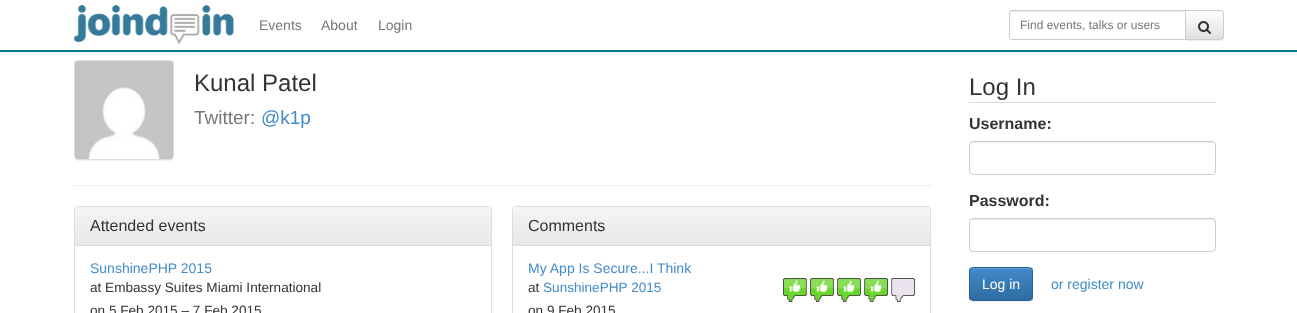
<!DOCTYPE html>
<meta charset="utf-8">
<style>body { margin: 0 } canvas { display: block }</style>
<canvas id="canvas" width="1297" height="313"></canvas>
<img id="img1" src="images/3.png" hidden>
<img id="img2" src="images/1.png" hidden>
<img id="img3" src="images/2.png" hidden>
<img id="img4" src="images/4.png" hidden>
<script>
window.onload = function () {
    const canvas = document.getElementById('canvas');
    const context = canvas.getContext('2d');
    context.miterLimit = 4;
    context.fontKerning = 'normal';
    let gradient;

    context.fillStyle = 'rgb(255, 255, 255)';
    context.fillRect(0, 0, 1297, 313);
    context.fillStyle = 'rgba(0, 0, 0, 0.05)';
    context.filter = 'blur(0.5px)';
    context.beginPath();
    context.roundRect(74, 61, 100, 100, 4);
    context.fill();
    context.filter = 'none';
    context.beginPath();
    context.roundRect(74.5, 60.5, 99, 99, 3.5);
    context.strokeStyle = 'rgb(221, 221, 221)';
    context.stroke();
    context.drawImage(document.getElementById('img1'), 75, 61, 98, 98);
    context.save();
    context.beginPath();
    context.rect(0, 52, 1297, 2);
    context.clip();
    context.fillStyle = 'rgba(0, 0, 0, 0.07)';
    context.filter = 'blur(2.5px)';
    context.beginPath();
    context.rect(0, 1, 1297, 52);
    context.fill();
    context.filter = 'none';
    context.restore();
    context.fillStyle = 'rgb(0, 123, 151)';
    context.fillRect(0, 50, 1297, 2);
    context.drawImage(document.getElementById('img2'), 73, 5, 161, 39);
    context.fillStyle = 'rgba(0, 0, 0, 0.07)';
    context.filter = 'blur(0.5px)';
    context.beginPath();
    context.roundRect(1185, 11, 39, 30, 4);
    context.fill();
    context.filter = 'none';
    context.save();
    context.beginPath();
    context.roundRect(1185, 10, 39, 30, [0, 4, 4, 0]);
    context.clip();
    gradient = context.createLinearGradient(1205, 11, 1205, 39);
    gradient.addColorStop(0, 'rgb(255, 255, 255)');
    gradient.addColorStop(1, 'rgb(224, 224, 224)');
    context.fillStyle = gradient;
    context.fillRect(1186, 11, 38, 28);
    context.restore();
    context.beginPath();
    context.roundRect(1185.5, 10.5, 38, 29, [0, 3.5, 3.5, 0]);
    context.strokeStyle = 'rgb(204, 204, 204)';
    context.stroke();
    context.fillStyle = 'rgb(255, 255, 255)';
    context.beginPath();
    context.roundRect(1009, 10, 177, 30, [3, 0, 0, 3]);
    context.fill();
    context.fillStyle = 'rgb(236, 236, 236)';
    context.beginPath();
    context.moveTo(1012, 12);
    context.lineTo(1185, 12);
    context.lineTo(1185, 11);
    context.lineTo(1011, 11);
    context.bezierCurveTo(1010, 12, 1010, 13, 1010, 14);
    context.bezierCurveTo(1010, 13, 1011, 12, 1012, 12);
    context.closePath();
    context.fill();
    context.beginPath();
    context.roundRect(1009.5, 10.5, 176, 29, [2.5, 0, 0, 2.5]);
    context.stroke();
    context.drawImage(document.getElementById('img3'), 1198, 21, 13, 13);
    context.fillStyle = 'rgb(238, 238, 238)';
    context.fillRect(74, 185, 857, 1);
    context.beginPath();
    context.roundRect(74.5, 206.5, 417, 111, 3.5);
    context.strokeStyle = 'rgb(221, 221, 221)';
    context.stroke();
    gradient = context.createLinearGradient(283, 207, 283, 245);
    gradient.addColorStop(0, 'rgb(245, 245, 245)');
    gradient.addColorStop(1, 'rgb(232, 232, 232)');
    context.fillStyle = gradient;
    context.beginPath();
    context.roundRect(75, 207, 416, 38, [3, 3, 0, 0]);
    context.fill();
    context.fillStyle = 'rgb(221, 221, 221)';
    context.fillRect(75, 245, 416, 1);
    context.beginPath();
    context.roundRect(512.5, 206.5, 418, 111, 3.5);
    context.stroke();
    gradient = context.createLinearGradient(722, 207, 722, 245);
    gradient.addColorStop(0, 'rgb(245, 245, 245)');
    gradient.addColorStop(1, 'rgb(232, 232, 232)');
    context.fillStyle = gradient;
    context.beginPath();
    context.roundRect(513, 207, 417, 38, [3, 3, 0, 0]);
    context.fill();
    context.fillStyle = 'rgb(221, 221, 221)';
    context.fillRect(513, 245, 417, 1);
    context.drawImage(document.getElementById('img4'), 783, 278, 132, 24);
    context.fillStyle = 'rgb(215, 220, 223)';
    context.fillRect(969, 102, 247, 1);
    context.fillStyle = 'rgb(236, 236, 236)';
    context.beginPath();
    context.moveTo(973, 143);
    context.lineTo(1213, 143);
    context.lineTo(1215, 144);
    context.lineTo(1215, 146);
    context.bezierCurveTo(1215, 144, 1214, 142, 1212, 142);
    context.lineTo(973, 142);
    context.bezierCurveTo(971, 142, 970, 144, 970, 146);
    context.bezierCurveTo(970, 144, 971, 143, 973, 143);
    context.closePath();
    context.fill();
    context.beginPath();
    context.roundRect(969.5, 141.5, 246, 33, 3.5);
    context.strokeStyle = 'rgb(204, 204, 204)';
    context.stroke();
    context.beginPath();
    context.moveTo(973, 220);
    context.lineTo(1213, 220);
    context.lineTo(1215, 221);
    context.lineTo(1215, 223);
    context.bezierCurveTo(1215, 221, 1214, 219, 1212, 219);
    context.lineTo(973, 219);
    context.bezierCurveTo(971, 219, 970, 221, 970, 223);
    context.bezierCurveTo(970, 221, 971, 220, 973, 220);
    context.closePath();
    context.fill();
    context.beginPath();
    context.roundRect(969.5, 218.5, 246, 33, 3.5);
    context.stroke();
    context.fillStyle = 'rgba(0, 0, 0, 0.07)';
    context.filter = 'blur(0.5px)';
    context.beginPath();
    context.roundRect(969, 268, 64, 34, 4);
    context.fill();
    context.filter = 'none';
    context.save();
    context.beginPath();
    context.roundRect(969, 267, 64, 34, 4);
    context.clip();
    gradient = context.createLinearGradient(1001, 268, 1001, 300);
    gradient.addColorStop(0, 'rgb(66, 139, 202)');
    gradient.addColorStop(1, 'rgb(45, 108, 162)');
    context.fillStyle = gradient;
    context.fillRect(969, 268, 64, 32);
    context.restore();
    context.fillStyle = 'rgb(94, 156, 209)';
    context.beginPath();
    context.moveTo(973, 269);
    context.lineTo(1029, 269);
    context.bezierCurveTo(1031, 269, 1032, 270, 1032, 272);
    context.bezierCurveTo(1032, 266, 1024, 268, 1020, 268);
    context.lineTo(982, 268);
    context.bezierCurveTo(978, 268, 970, 266, 970, 272);
    context.bezierCurveTo(970, 270, 971, 269, 973, 269);
    context.closePath();
    context.fill();
    context.beginPath();
    context.roundRect(969.5, 267.5, 63, 33, 3.5);
    context.strokeStyle = 'rgb(43, 102, 154)';
    context.stroke();
    context.font = '14px Liberation Sans';
    context.fillStyle = 'rgb(119, 119, 119)';
    context.fillText('Events', 259, 30);
    context.fillText('About', 321, 30);
    context.fillText('Login', 378, 30);
    context.font = '12px Liberation Sans';
    context.fillText('Find events, talks or users', 1020, 29);
    context.font = '24px Liberation Sans';
    context.fillStyle = 'rgb(51, 51, 51)';
    context.fillText('Kunal Patel', 194, 91);
    context.font = '19px Liberation Sans';
    context.fillStyle = 'rgb(119, 119, 119)';
    context.fillText('Twitter:', 194, 124);
    context.fillStyle = 'rgb(66, 139, 202)';
    context.fillText('@k1p', 261, 124);
    context.font = '16px Liberation Sans';
    context.fillStyle = 'rgb(51, 51, 51)';
    context.fillText('Attended events', 90, 231);
    context.font = '14px Liberation Sans';
    context.fillStyle = 'rgb(66, 139, 202)';
    context.fillText('SunshinePHP 2015', 90, 273);
    context.font = '13.6px Liberation Sans';
    context.fillStyle = 'rgb(51, 51, 51)';
    context.fillText('at Embassy Suites Miami International', 90, 292);
    context.fillText('on 5 Feb 2015 – 7 Feb 2015', 90, 315);
    context.font = '16px Liberation Sans';
    context.fillText('Comments', 528, 231);
    context.font = '14px Liberation Sans';
    context.fillStyle = 'rgb(66, 139, 202)';
    context.fillText('My App Is Secure...I Think', 528, 273);
    context.font = '13.6px Liberation Sans';
    context.fillStyle = 'rgb(51, 51, 51)';
    context.fillText('at', 528, 292);
    context.fillStyle = 'rgb(66, 139, 202)';
    context.fillText('SunshinePHP 2015', 543, 292);
    context.fillStyle = 'rgb(51, 51, 51)';
    context.fillText('on 9 Feb 2015', 528, 315);
    context.font = '24px Liberation Sans';
    context.fillText('Log In', 969, 95);
    context.font = 'bold 16px Liberation Sans';
    context.fillText('Username:', 969, 129);
    context.fillText('Password:', 969, 206);
    context.font = '14px Liberation Sans';
    context.fillStyle = 'rgb(255, 255, 255)';
    context.fillText('Log in', 982, 289);
    context.fillStyle = 'rgb(66, 139, 202)';
    context.fillText('or register now', 1051, 289);
};
</script>
